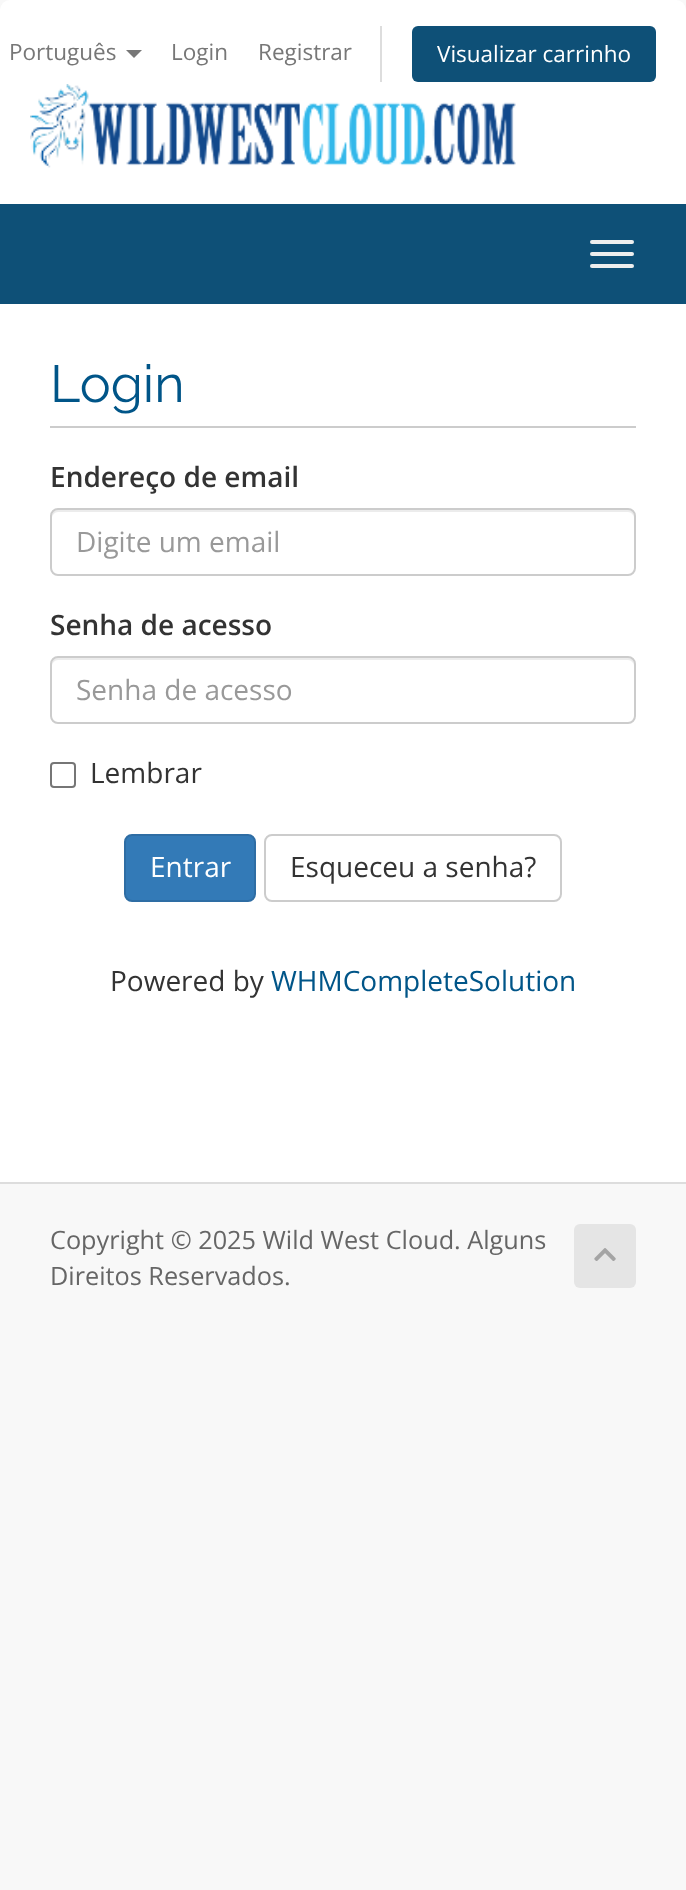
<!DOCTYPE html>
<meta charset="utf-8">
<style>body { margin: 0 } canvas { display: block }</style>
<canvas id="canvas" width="686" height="1890"></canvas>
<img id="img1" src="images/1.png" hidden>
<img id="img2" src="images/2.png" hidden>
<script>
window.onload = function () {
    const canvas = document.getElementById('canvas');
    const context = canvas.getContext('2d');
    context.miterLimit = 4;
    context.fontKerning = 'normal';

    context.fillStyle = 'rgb(248, 248, 248)';
    context.fillRect(0, 0, 686, 1890);
    context.fillStyle = 'rgb(255, 255, 255)';
    context.beginPath();
    context.roundRect(0, 0, 686, 204, [10, 10, 0, 0]);
    context.fill();
    context.fillStyle = 'rgb(119, 119, 119)';
    context.beginPath();
    context.moveTo(126, 50);
    context.lineTo(142, 50);
    context.lineTo(134, 58);
    context.closePath();
    context.fill();
    context.fillStyle = 'rgb(221, 221, 221)';
    context.fillRect(380, 26, 2, 56);
    context.fillStyle = 'rgb(14, 80, 119)';
    context.beginPath();
    context.roundRect(412, 26, 244, 56, 6);
    context.fill();
    context.drawImage(document.getElementById('img1'), 30, 84, 486, 84);
    context.fillRect(0, 204, 686, 100);
    context.fillStyle = 'rgb(238, 238, 238)';
    context.beginPath();
    context.roundRect(590, 240, 44, 4, 2);
    context.fill();
    context.beginPath();
    context.roundRect(590, 252, 44, 4, 2);
    context.fill();
    context.beginPath();
    context.roundRect(590, 264, 44, 4, 2);
    context.fill();
    context.fillStyle = 'rgb(255, 255, 255)';
    context.fillRect(0, 304, 686, 878);
    context.fillStyle = 'rgb(204, 204, 204)';
    context.fillRect(50, 426, 586, 2);
    context.fillStyle = 'rgb(236, 236, 236)';
    context.beginPath();
    context.moveTo(58, 512);
    context.lineTo(628, 512);
    context.bezierCurveTo(631, 512, 634, 515, 634, 518);
    context.bezierCurveTo(634, 514, 633, 510, 628, 510);
    context.lineTo(58, 510);
    context.bezierCurveTo(53, 510, 52, 514, 52, 518);
    context.bezierCurveTo(52, 515, 55, 512, 58, 512);
    context.closePath();
    context.fill();
    context.beginPath();
    context.roundRect(51, 509, 584, 66, 7);
    context.strokeStyle = 'rgb(204, 204, 204)';
    context.lineWidth = 2;
    context.stroke();
    context.beginPath();
    context.moveTo(58, 660);
    context.lineTo(628, 660);
    context.bezierCurveTo(631, 660, 634, 663, 634, 666);
    context.bezierCurveTo(634, 662, 633, 658, 628, 658);
    context.lineTo(58, 658);
    context.bezierCurveTo(53, 658, 52, 662, 52, 666);
    context.bezierCurveTo(52, 663, 55, 660, 58, 660);
    context.closePath();
    context.fill();
    context.beginPath();
    context.roundRect(51, 657, 584, 66, 7);
    context.stroke();
    context.beginPath();
    context.roundRect(51, 763, 24, 24, 3);
    context.strokeStyle = 'rgb(118, 118, 118)';
    context.stroke();
    context.fillStyle = 'rgb(51, 122, 183)';
    context.beginPath();
    context.roundRect(125, 835, 130, 66, 7);
    context.fill();
    context.strokeStyle = 'rgb(46, 109, 164)';
    context.stroke();
    context.beginPath();
    context.roundRect(265, 835, 296, 66, 7);
    context.strokeStyle = 'rgb(204, 204, 204)';
    context.stroke();
    context.fillStyle = 'rgb(221, 221, 221)';
    context.fillRect(0, 1182, 686, 2);
    context.fillStyle = 'rgb(229, 229, 229)';
    context.beginPath();
    context.roundRect(574, 1224, 62, 64, 6);
    context.fill();
    context.drawImage(document.getElementById('img2'), 594, 1248, 22, 13);
    context.font = '22.5px Open Sans';
    context.fillStyle = 'rgb(119, 119, 119)';
    context.fillText('Português', 9, 60);
    context.fillText('Login', 171, 60);
    context.fillText('Registrar', 258, 60);
    context.fillStyle = 'rgb(255, 255, 255)';
    context.fillText('Visualizar carrinho', 437, 62);
    context.font = '52px Raleway';
    context.fillStyle = 'rgb(0, 85, 136)';
    context.fillText('Login', 50, 402);
    context.font = '600 28px Open Sans';
    context.fillStyle = 'rgb(51, 51, 51)';
    context.fillText('Endereço de email', 50, 487);
    context.font = '28px Open Sans';
    context.fillStyle = 'rgb(153, 153, 153)';
    context.fillText('Digite um email', 76, 552);
    context.font = '600 28px Open Sans';
    context.fillStyle = 'rgb(51, 51, 51)';
    context.fillText('Senha de acesso', 50, 635);
    context.font = '28px Open Sans';
    context.fillStyle = 'rgb(153, 153, 153)';
    context.fillText('Senha de acesso', 76, 700);
    context.fillStyle = 'rgb(51, 51, 51)';
    context.fillText('Lembrar', 90, 783);
    context.fillStyle = 'rgb(255, 255, 255)';
    context.fillText('Entrar', 150, 877);
    context.fillStyle = 'rgb(51, 51, 51)';
    context.fillText('Esqueceu a senha?', 290, 877);
    context.fillText('Powered by', 110, 991);
    context.fillStyle = 'rgb(0, 85, 136)';
    context.fillText('WHMCompleteSolution', 271, 991);
    context.font = '25.25px Open Sans';
    context.fillStyle = 'rgb(102, 102, 102)';
    context.fillText('Copyright © 2025 Wild West Cloud. Alguns', 50, 1249);
    context.fillText('Direitos Reservados.', 50, 1285);
};
</script>
